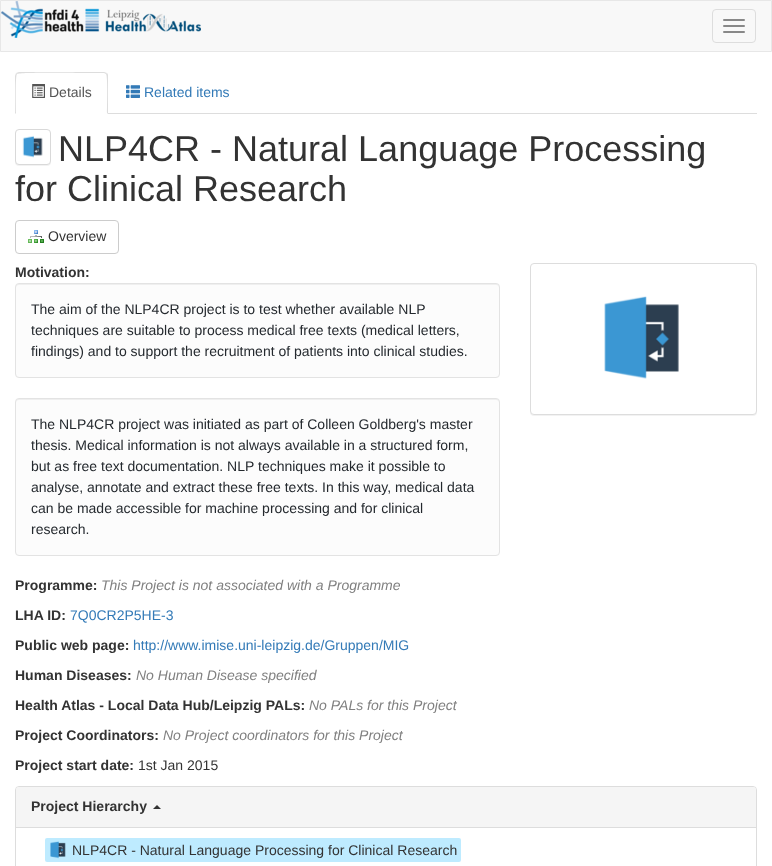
<!DOCTYPE html>
<meta charset="utf-8">
<style>body { margin: 0 } canvas { display: block }</style>
<canvas id="canvas" width="772" height="866"></canvas>
<img id="img1" src="images/1.png" hidden>
<img id="img2" src="images/2.png" hidden>
<img id="img3" src="images/3.png" hidden>
<img id="img4" src="images/4.png" hidden>
<img id="img5" src="images/5.png" hidden>
<img id="img6" src="images/6.png" hidden>
<img id="img7" src="images/7.png" hidden>
<script>
window.onload = function () {
    const canvas = document.getElementById('canvas');
    const context = canvas.getContext('2d');
    context.miterLimit = 4;
    context.fontKerning = 'normal';

    context.fillStyle = 'rgb(255, 255, 255)';
    context.fillRect(0, 0, 772, 866);
    context.fillStyle = 'rgb(248, 248, 248)';
    context.beginPath();
    context.rect(0.5, 0.5, 771, 51);
    context.fill();
    context.strokeStyle = 'rgb(231, 231, 231)';
    context.stroke();
    context.drawImage(document.getElementById('img1'), 1, 1, 200, 37);
    context.beginPath();
    context.roundRect(712.5, 9.5, 43, 33, 3.5);
    context.strokeStyle = 'rgb(221, 221, 221)';
    context.stroke();
    context.fillStyle = 'rgb(136, 136, 136)';
    context.beginPath();
    context.roundRect(723, 19, 22, 2, 1);
    context.fill();
    context.beginPath();
    context.roundRect(723, 25, 22, 2, 1);
    context.fill();
    context.beginPath();
    context.roundRect(723, 31, 22, 2, 1);
    context.fill();
    context.fillStyle = 'rgb(221, 221, 221)';
    context.fillRect(108, 113, 649, 1);
    context.beginPath();
    context.moveTo(19, 72);
    context.lineTo(16, 73);
    context.lineTo(17, 74);
    context.bezierCurveTo(19, 72, 82, 73, 90, 73);
    context.lineTo(104, 73);
    context.lineTo(106, 74);
    context.lineTo(107, 73);
    context.lineTo(104, 72);
    context.closePath();
    context.fill();
    context.beginPath();
    context.moveTo(108, 114);
    context.lineTo(108, 76);
    context.bezierCurveTo(108, 75, 108, 74, 107, 73);
    context.lineTo(106, 74);
    context.bezierCurveTo(108, 76, 107, 108, 107, 113);
    context.closePath();
    context.fill();
    context.beginPath();
    context.moveTo(15, 114);
    context.lineTo(16, 113);
    context.bezierCurveTo(16, 108, 15, 76, 17, 74);
    context.lineTo(16, 73);
    context.lineTo(15, 76);
    context.closePath();
    context.fill();
    context.drawImage(document.getElementById('img2'), 32, 84, 13, 14);
    context.drawImage(document.getElementById('img3'), 126, 85, 14, 13);
    context.fillStyle = 'rgba(0, 0, 0, 0.05)';
    context.filter = 'blur(0.5px)';
    context.beginPath();
    context.roundRect(15, 130, 36, 36, 4);
    context.fill();
    context.filter = 'none';
    context.fillStyle = 'rgb(255, 255, 255)';
    context.beginPath();
    context.roundRect(15.5, 129.5, 35, 35, 3.5);
    context.fill();
    context.strokeStyle = 'rgb(217, 217, 217)';
    context.stroke();
    context.drawImage(document.getElementById('img4'), 22, 135, 21, 23);
    context.beginPath();
    context.roundRect(15.5, 220.5, 103, 33, 3.5);
    context.strokeStyle = 'rgb(204, 204, 204)';
    context.stroke();
    context.drawImage(document.getElementById('img5'), 28, 230, 16, 13);
    context.fillStyle = 'rgb(252, 252, 252)';
    context.beginPath();
    context.roundRect(15, 283, 485, 95, 4);
    context.fill();
    context.fillStyle = 'rgb(239, 239, 239)';
    context.beginPath();
    context.moveTo(19, 285);
    context.lineTo(496, 285);
    context.bezierCurveTo(498, 285, 499, 286, 499, 288);
    context.lineTo(499, 287);
    context.bezierCurveTo(499, 285, 498, 284, 496, 284);
    context.lineTo(19, 284);
    context.bezierCurveTo(17, 284, 16, 285, 16, 287);
    context.lineTo(16, 288);
    context.bezierCurveTo(16, 286, 17, 285, 19, 285);
    context.closePath();
    context.fill();
    context.beginPath();
    context.roundRect(15.5, 283.5, 484, 94, 3.5);
    context.strokeStyle = 'rgb(227, 227, 227)';
    context.stroke();
    context.fillStyle = 'rgb(252, 252, 252)';
    context.beginPath();
    context.roundRect(15, 398, 485, 158, 4);
    context.fill();
    context.fillStyle = 'rgb(239, 239, 239)';
    context.beginPath();
    context.moveTo(19, 400);
    context.lineTo(496, 400);
    context.bezierCurveTo(498, 400, 499, 401, 499, 403);
    context.lineTo(499, 402);
    context.bezierCurveTo(499, 400, 498, 399, 496, 399);
    context.lineTo(19, 399);
    context.bezierCurveTo(17, 399, 16, 400, 16, 402);
    context.lineTo(16, 403);
    context.bezierCurveTo(16, 401, 17, 400, 19, 400);
    context.closePath();
    context.fill();
    context.beginPath();
    context.roundRect(15.5, 398.5, 484, 157, 3.5);
    context.stroke();
    context.fillStyle = 'rgba(0, 0, 0, 0.05)';
    context.filter = 'blur(0.5px)';
    context.beginPath();
    context.roundRect(530, 264, 227, 152, 4);
    context.fill();
    context.filter = 'none';
    context.fillStyle = 'rgb(255, 255, 255)';
    context.beginPath();
    context.roundRect(530.5, 263.5, 226, 151, 3.5);
    context.fill();
    context.strokeStyle = 'rgb(221, 221, 221)';
    context.stroke();
    context.drawImage(document.getElementById('img6'), 604, 296, 75, 83);
    context.beginPath();
    context.roundRect(15.5, 786.5, 741, 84, 3.5);
    context.stroke();
    context.fillStyle = 'rgb(245, 245, 245)';
    context.beginPath();
    context.roundRect(16, 787, 740, 41, [3, 3, 0, 0]);
    context.fill();
    context.fillStyle = 'rgb(221, 221, 221)';
    context.fillRect(16, 827, 740, 1);
    context.fillStyle = 'rgb(51, 51, 51)';
    context.beginPath();
    context.moveTo(161, 809);
    context.lineTo(153, 809);
    context.lineTo(157, 805);
    context.closePath();
    context.fill();
    context.fillStyle = 'rgb(190, 235, 255)';
    context.beginPath();
    context.roundRect(45, 838, 416, 24, 2);
    context.fill();
    context.drawImage(document.getElementById('img7'), 50, 841, 16, 18);
    context.font = '14px Liberation Sans';
    context.fillStyle = 'rgb(85, 85, 85)';
    context.fillText('Details', 49, 97);
    context.fillStyle = 'rgb(51, 122, 183)';
    context.fillText('Related items', 144, 97);
    context.font = '36px Liberation Sans';
    context.fillStyle = 'rgb(51, 51, 51)';
    context.fillText('NLP4CR - Natural Language Processing', 58, 161);
    context.fillText('for Clinical Research', 15, 201);
    context.font = '14px Liberation Sans';
    context.fillText('Overview', 48, 241);
    context.font = 'bold 14px Liberation Sans';
    context.fillText('Motivation:', 15, 277);
    context.font = '14px Liberation Sans';
    context.fillStyle = 'rgb(36, 41, 46)';
    context.fillText('The aim of the NLP4CR project is to test whether available NLP', 31, 314);
    context.fillText('techniques are suitable to process medical free texts (medical letters,', 31, 335);
    context.fillText('findings) and to support the recruitment of patients into clinical studies.', 31, 356);
    context.fillText('The NLP4CR project was initiated as part of Colleen Goldberg\'s master', 31, 429);
    context.fillText('thesis. Medical information is not always available in a structured form,', 31, 450);
    context.fillText('but as free text documentation. NLP techniques make it possible to', 31, 471);
    context.fillText('analyse, annotate and extract these free texts. In this way, medical data', 31, 492);
    context.fillText('can be made accessible for machine processing and for clinical', 31, 513);
    context.fillText('research.', 31, 534);
    context.font = 'bold 14px Liberation Sans';
    context.fillStyle = 'rgb(51, 51, 51)';
    context.fillText('Programme:', 15, 590);
    context.font = 'italic 14px Liberation Sans';
    context.fillStyle = 'rgb(128, 128, 128)';
    context.fillText('This Project is not associated with a Programme', 101, 590);
    context.font = 'bold 14px Liberation Sans';
    context.fillStyle = 'rgb(51, 51, 51)';
    context.fillText('LHA ID:', 15, 620);
    context.font = '14px Liberation Sans';
    context.fillStyle = 'rgb(51, 122, 183)';
    context.fillText('7Q0CR2P5HE-3', 70, 620);
    context.font = 'bold 14px Liberation Sans';
    context.fillStyle = 'rgb(51, 51, 51)';
    context.fillText('Public web page:', 15, 650);
    context.font = '14px Liberation Sans';
    context.fillStyle = 'rgb(51, 122, 183)';
    context.fillText('http://www.imise.uni-leipzig.de/Gruppen/MIG', 133, 650);
    context.font = 'bold 14px Liberation Sans';
    context.fillStyle = 'rgb(51, 51, 51)';
    context.fillText('Human Diseases:', 15, 680);
    context.font = 'italic 14px Liberation Sans';
    context.fillStyle = 'rgb(128, 128, 128)';
    context.fillText('No Human Disease specified', 136, 680);
    context.font = 'bold 14px Liberation Sans';
    context.fillStyle = 'rgb(51, 51, 51)';
    context.fillText('Health Atlas - Local Data Hub/Leipzig PALs:', 15, 710);
    context.font = 'italic 14px Liberation Sans';
    context.fillStyle = 'rgb(128, 128, 128)';
    context.fillText('No PALs for this Project', 309, 710);
    context.font = 'bold 14px Liberation Sans';
    context.fillStyle = 'rgb(51, 51, 51)';
    context.fillText('Project Coordinators:', 15, 740);
    context.font = 'italic 14px Liberation Sans';
    context.fillStyle = 'rgb(128, 128, 128)';
    context.fillText('No Project coordinators for this Project', 163, 740);
    context.font = 'bold 14px Liberation Sans';
    context.fillStyle = 'rgb(51, 51, 51)';
    context.fillText('Project start date:', 15, 770);
    context.font = '14px Liberation Sans';
    context.fillText('1st Jan 2015', 138, 770);
    context.font = 'bold 14px Liberation Sans';
    context.fillText('Project Hierarchy', 31, 811);
    context.font = '14px Liberation Sans';
    context.fillText('NLP4CR - Natural Language Processing for Clinical Research', 72, 855);
};
</script>
